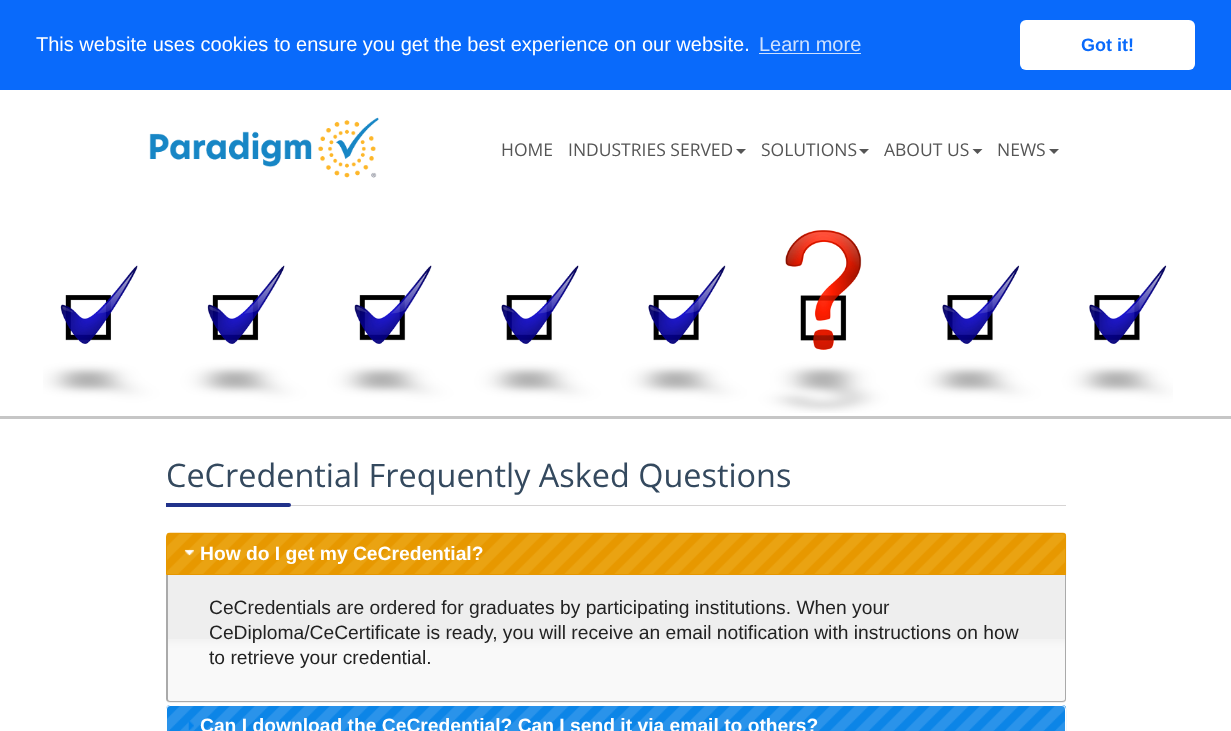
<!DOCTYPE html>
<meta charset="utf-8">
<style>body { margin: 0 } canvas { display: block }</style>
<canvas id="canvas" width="1231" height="731"></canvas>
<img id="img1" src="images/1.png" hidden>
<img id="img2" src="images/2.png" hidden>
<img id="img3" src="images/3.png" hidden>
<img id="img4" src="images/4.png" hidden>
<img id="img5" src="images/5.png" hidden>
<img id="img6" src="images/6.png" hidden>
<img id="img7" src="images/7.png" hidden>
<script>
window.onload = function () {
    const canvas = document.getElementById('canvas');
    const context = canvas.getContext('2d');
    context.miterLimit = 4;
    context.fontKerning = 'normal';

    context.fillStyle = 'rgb(255, 255, 255)';
    context.fillRect(0, 0, 1231, 731);
    context.fillStyle = 'rgb(9, 106, 251)';
    context.fillRect(0, 0, 1231, 90);
    context.fillStyle = 'rgb(206, 225, 254)';
    context.fillRect(759, 53, 102, 1);
    context.fillStyle = 'rgb(255, 255, 255)';
    context.beginPath();
    context.roundRect(1020, 20, 175, 50, 6);
    context.fill();
    context.drawImage(document.getElementById('img1'), 149, 117, 230, 61);
    context.fillStyle = 'rgb(85, 85, 85)';
    context.beginPath();
    context.moveTo(736, 149);
    context.lineTo(746, 149);
    context.lineTo(741, 154);
    context.closePath();
    context.fill();
    context.beginPath();
    context.moveTo(859, 149);
    context.lineTo(869, 149);
    context.lineTo(864, 154);
    context.closePath();
    context.fill();
    context.beginPath();
    context.moveTo(972.5, 149);
    context.lineTo(982.5, 149);
    context.lineTo(977.5, 154);
    context.closePath();
    context.fill();
    context.beginPath();
    context.moveTo(1049, 149);
    context.lineTo(1059, 149);
    context.lineTo(1054, 154);
    context.closePath();
    context.fill();
    context.fillStyle = 'rgb(198, 198, 198)';
    context.fillRect(0, 416, 1231, 3);
    context.drawImage(document.getElementById('img2'), 43, 230, 1130, 183);
    context.fillStyle = 'rgb(214, 212, 212)';
    context.fillRect(290, 505, 776, 1);
    context.fillStyle = 'rgb(33, 50, 139)';
    context.beginPath();
    context.roundRect(166, 503, 125, 4, [0, 2, 2, 0]);
    context.fill();
    context.drawImage(document.getElementById('img3'), 166, 532, 901, 43);
    context.beginPath();
    context.roundRect(166.5, 533.5, 899, 41, [3.5, 3.5, 0, 0]);
    context.strokeStyle = 'rgb(230, 151, 0)';
    context.stroke();
    context.drawImage(document.getElementById('img4'), 184, 549, 10, 7);
    context.fillStyle = 'rgb(238, 238, 238)';
    context.beginPath();
    context.roundRect(166, 575, 900, 128, [0, 0, 4, 4]);
    context.fill();
    context.drawImage(document.getElementById('img5'), 166, 639, 900, 62);
    context.fillStyle = 'rgb(170, 170, 170)';
    context.beginPath();
    context.moveTo(166, 575);
    context.lineTo(1066, 575);
    context.lineTo(1066, 699);
    context.bezierCurveTo(1066, 701, 1065, 702, 1062, 702);
    context.lineTo(170, 702);
    context.bezierCurveTo(168, 702, 166, 701, 166, 699);
    context.closePath();
    context.moveTo(168, 575);
    context.lineTo(1065, 575);
    context.lineTo(1065, 699);
    context.bezierCurveTo(1065, 700, 1064, 701, 1062, 701);
    context.lineTo(170, 701);
    context.bezierCurveTo(169, 701, 168, 700, 168, 699);
    context.closePath();
    context.fill('evenodd');
    context.drawImage(document.getElementById('img6'), 166, 705, 901, 26);
    context.beginPath();
    context.roundRect(166.5, 705.5, 899, 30, 3.5);
    context.strokeStyle = 'rgb(255, 255, 255)';
    context.stroke();
    context.drawImage(document.getElementById('img7'), 188, 721, 6, 10);
    context.font = '20px Liberation Sans';
    context.fillStyle = 'rgb(255, 255, 255)';
    context.fillText('This website uses cookies to ensure you get the best experience on our website.', 36, 51);
    context.fillStyle = 'rgb(206, 225, 254)';
    context.fillText('Learn more', 759, 51);
    context.font = 'bold 18px Liberation Sans';
    context.fillStyle = 'rgb(9, 106, 251)';
    context.fillText('Got it!', 1081, 51);
    context.font = '17.5px Open Sans';
    context.fillStyle = 'rgb(85, 85, 85)';
    context.fillText('HOME', 501, 156);
    context.fillText('INDUSTRIES SERVED', 568, 156);
    context.fillText('SOLUTIONS', 761, 156);
    context.fillText('ABOUT US', 884, 156);
    context.fillText('NEWS', 997, 156);
    context.font = '32.4px Open Sans';
    context.fillStyle = 'rgb(52, 73, 94)';
    context.fillText('CeCredential Frequently Asked Questions', 166, 487);
    context.font = 'bold 19.25px Liberation Sans';
    context.fillStyle = 'rgb(255, 255, 255)';
    context.fillText('How do I get my CeCredential?', 200, 560);
    context.font = '19.25px Liberation Sans';
    context.fillStyle = 'rgb(34, 34, 34)';
    context.fillText('CeCredentials are ordered for graduates by participating institutions. When your', 209, 614);
    context.fillText('CeDiploma/CeCertificate is ready, you will receive an email notification with instructions on how', 209, 639);
    context.fillText('to retrieve your credential.', 209, 664);
    context.font = 'bold 19.25px Liberation Sans';
    context.fillStyle = 'rgb(255, 255, 255)';
    context.fillText('Can I download the CeCredential? Can I send it via email to others?', 200, 732);
};
</script>
